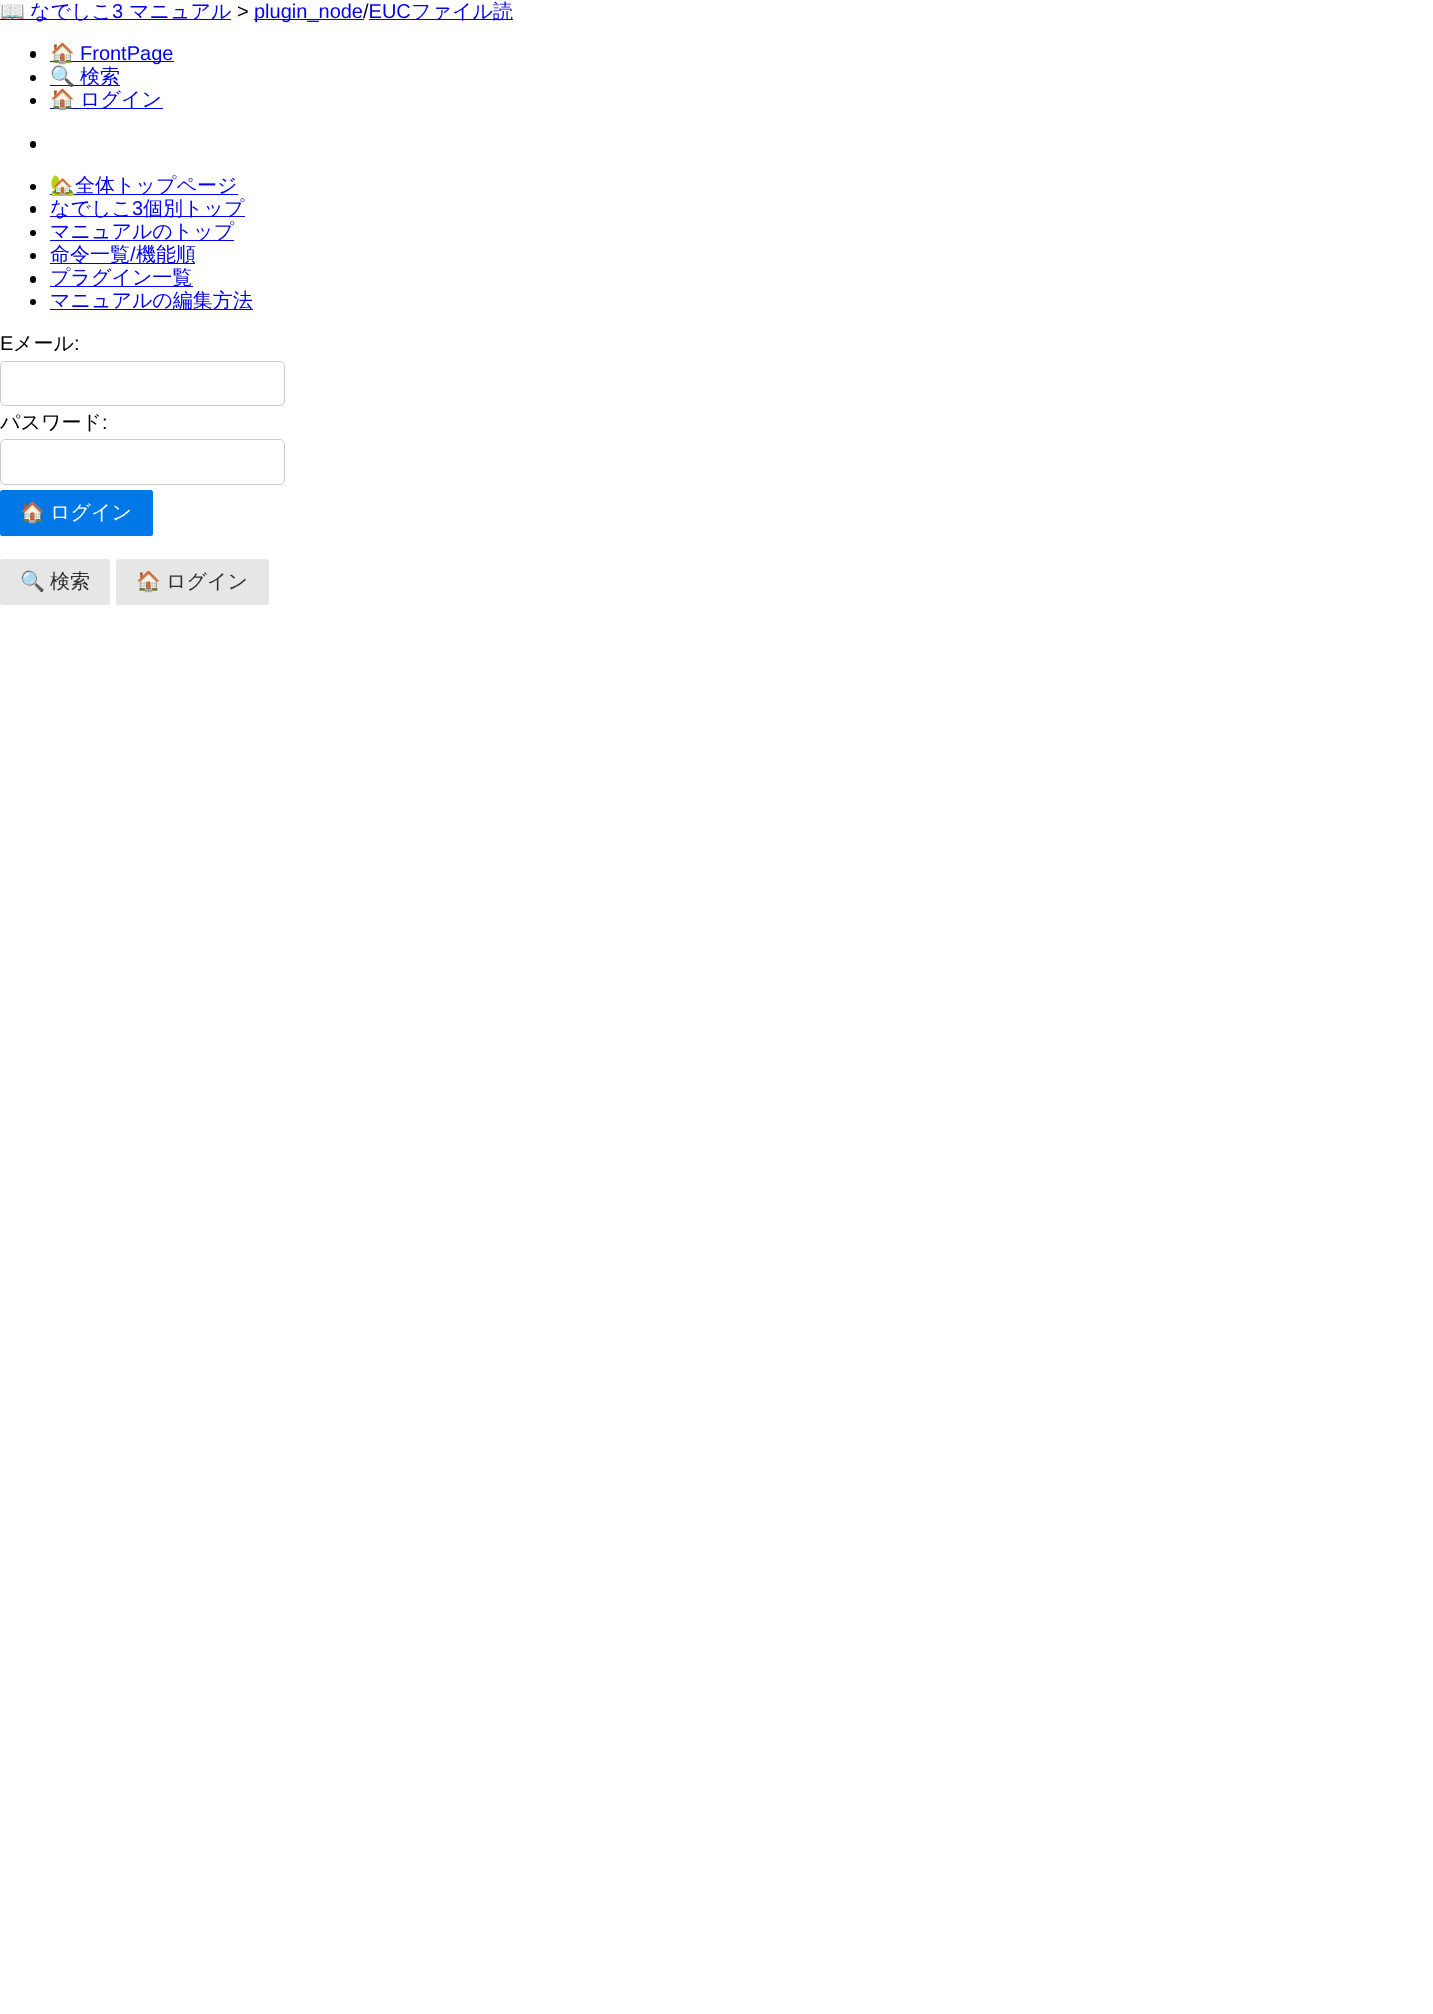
<!DOCTYPE html>
<meta charset="utf-8">
<style>body { margin: 0 } canvas { display: block }</style>
<canvas id="canvas" width="1433" height="2014"></canvas>
<script>
window.onload = function () {
    const canvas = document.getElementById('canvas');
    const context = canvas.getContext('2d');
    context.miterLimit = 4;
    context.fontKerning = 'normal';

    context.fillStyle = 'rgb(255, 255, 255)';
    context.fillRect(0, 0, 1433, 2014);
    context.fillStyle = 'rgb(0, 0, 238)';
    context.fillRect(0, 19, 231, 1);
    context.fillRect(254, 19, 110, 1);
    context.fillRect(369, 19, 144, 1);
    context.fillStyle = 'rgb(0, 0, 0)';
    context.beginPath();
    context.roundRect(30, 51, 6, 7, 3);
    context.fill();
    context.fillStyle = 'rgb(0, 0, 238)';
    context.fillRect(50, 61, 124, 1);
    context.fillStyle = 'rgb(0, 0, 0)';
    context.beginPath();
    context.arc(33, 78, 3, 0, 2 * Math.PI);
    context.fill();
    context.fillStyle = 'rgb(0, 0, 238)';
    context.fillRect(50, 85, 70, 1);
    context.fillStyle = 'rgb(0, 0, 0)';
    context.beginPath();
    context.arc(33, 101, 3, 0, 2 * Math.PI);
    context.fill();
    context.fillStyle = 'rgb(0, 0, 238)';
    context.fillRect(50, 108, 113, 1);
    context.fillStyle = 'rgb(0, 0, 0)';
    context.beginPath();
    context.roundRect(30, 141, 6, 7, 3);
    context.fill();
    context.beginPath();
    context.arc(33, 187, 3, 0, 2 * Math.PI);
    context.fill();
    context.fillStyle = 'rgb(0, 0, 238)';
    context.fillRect(50, 194, 188, 1);
    context.fillStyle = 'rgb(0, 0, 0)';
    context.beginPath();
    context.roundRect(30, 206, 6, 7, 3);
    context.fill();
    context.fillStyle = 'rgb(0, 0, 238)';
    context.fillRect(50, 216, 195, 1);
    context.fillStyle = 'rgb(0, 0, 0)';
    context.beginPath();
    context.arc(33, 233, 3, 0, 2 * Math.PI);
    context.fill();
    context.fillStyle = 'rgb(0, 0, 238)';
    context.fillRect(50, 240, 184, 1);
    context.fillStyle = 'rgb(0, 0, 0)';
    context.beginPath();
    context.arc(33, 256, 3, 0, 2 * Math.PI);
    context.fill();
    context.fillStyle = 'rgb(0, 0, 238)';
    context.fillRect(50, 263, 145, 1);
    context.fillStyle = 'rgb(0, 0, 0)';
    context.beginPath();
    context.roundRect(30, 276, 6, 7, 3);
    context.fill();
    context.fillStyle = 'rgb(0, 0, 238)';
    context.fillRect(50, 286, 143, 1);
    context.fillStyle = 'rgb(0, 0, 0)';
    context.beginPath();
    context.arc(33, 302, 3, 0, 2 * Math.PI);
    context.fill();
    context.fillStyle = 'rgb(0, 0, 238)';
    context.fillRect(50, 309, 203, 1);
    context.beginPath();
    context.roundRect(0.5, 361.5, 284, 44, 4.5);
    context.strokeStyle = 'rgb(204, 204, 204)';
    context.stroke();
    context.beginPath();
    context.roundRect(0.5, 439.5, 284, 45, 4.5);
    context.stroke();
    context.fillStyle = 'rgb(0, 120, 231)';
    context.beginPath();
    context.roundRect(0, 490, 153, 46, 2.5);
    context.fill();
    context.fillStyle = 'rgb(230, 230, 230)';
    context.beginPath();
    context.roundRect(0, 559, 110, 46, 2.5);
    context.fill();
    context.beginPath();
    context.roundRect(116, 559, 153, 46, 2.5);
    context.fill();
    context.font = '20px Noto Color Emoji';
    context.fillStyle = 'rgb(0, 0, 238)';
    context.fillText('📖', 0, 18);
    context.font = '500 20px WenQuanYi Zen Hei';
    context.fillText('なでしこ', 30, 18);
    context.font = '20px Liberation Sans';
    context.fillText('plugin_node EUC', 254, 18);
    context.font = '500 20px WenQuanYi Zen Hei';
    context.fillText('ファイル読', 411, 18);
    context.font = '20px Liberation Sans';
    context.fillText('3', 112, 18);
    context.font = '500 20px WenQuanYi Zen Hei';
    context.fillText('マニュアル', 129, 18);
    context.font = '20px Liberation Sans';
    context.fillStyle = 'rgb(0, 0, 0)';
    context.fillText('>', 237, 18);
    context.fillText('/', 363, 18);
    context.font = '20px Noto Color Emoji';
    context.fillStyle = 'rgb(0, 0, 238)';
    context.fillText('🏠', 50, 60);
    context.font = '20px Liberation Sans';
    context.fillText('FrontPage', 80, 60);
    context.font = '20px Noto Color Emoji';
    context.fillText('🔍', 50, 83);
    context.font = '500 20px WenQuanYi Zen Hei';
    context.fillText('検索', 80, 83);
    context.font = '20px Noto Color Emoji';
    context.fillText('🏠', 50, 106);
    context.font = '500 20px WenQuanYi Zen Hei';
    context.fillText('ログイン', 80, 106);
    context.font = '20px Noto Color Emoji';
    context.fillText('🏡', 50, 192);
    context.font = '500 20px WenQuanYi Zen Hei';
    context.fillText('全体トップページ', 75, 192);
    context.fillText('なでしこ', 50, 215);
    context.font = '20px Liberation Sans';
    context.fillText('3', 132, 215);
    context.font = '500 20px WenQuanYi Zen Hei';
    context.fillText('個別トップ', 143, 215);
    context.fillText('マニュアルのトップ', 50, 238);
    context.fillText('命令一覧', 50, 261);
    context.font = '20px Liberation Sans';
    context.fillText('/', 130, 261);
    context.font = '500 20px WenQuanYi Zen Hei';
    context.fillText('機能順', 136, 261);
    context.fillText('プラグイン一覧', 50, 284);
    context.fillText('マニュアルの編集方法', 50, 307);
    context.font = '20px Liberation Sans';
    context.fillStyle = 'rgb(0, 0, 0)';
    context.fillText('E', 0, 350);
    context.font = '500 20px WenQuanYi Zen Hei';
    context.fillText('メール', 13, 350);
    context.font = '20px Liberation Sans';
    context.fillText(':', 74, 350);
    context.font = '500 20px WenQuanYi Zen Hei';
    context.fillText('パスワード', 0, 429);
    context.font = '20px Liberation Sans';
    context.fillText(':', 102, 429);
    context.font = '20px Noto Color Emoji';
    context.fillStyle = 'rgb(255, 255, 255)';
    context.fillText('🏠', 20, 519);
    context.font = '500 20px WenQuanYi Zen Hei';
    context.fillText('ログイン', 50, 519);
    context.font = '20px Noto Color Emoji';
    context.fillStyle = 'rgb(46, 46, 46)';
    context.fillText('🔍', 20, 588);
    context.font = '500 20px WenQuanYi Zen Hei';
    context.fillText('検索', 50, 588);
    context.font = '20px Noto Color Emoji';
    context.fillText('🏠', 136, 588);
    context.font = '500 20px WenQuanYi Zen Hei';
    context.fillText('ログイン', 166, 588);
};
</script>
